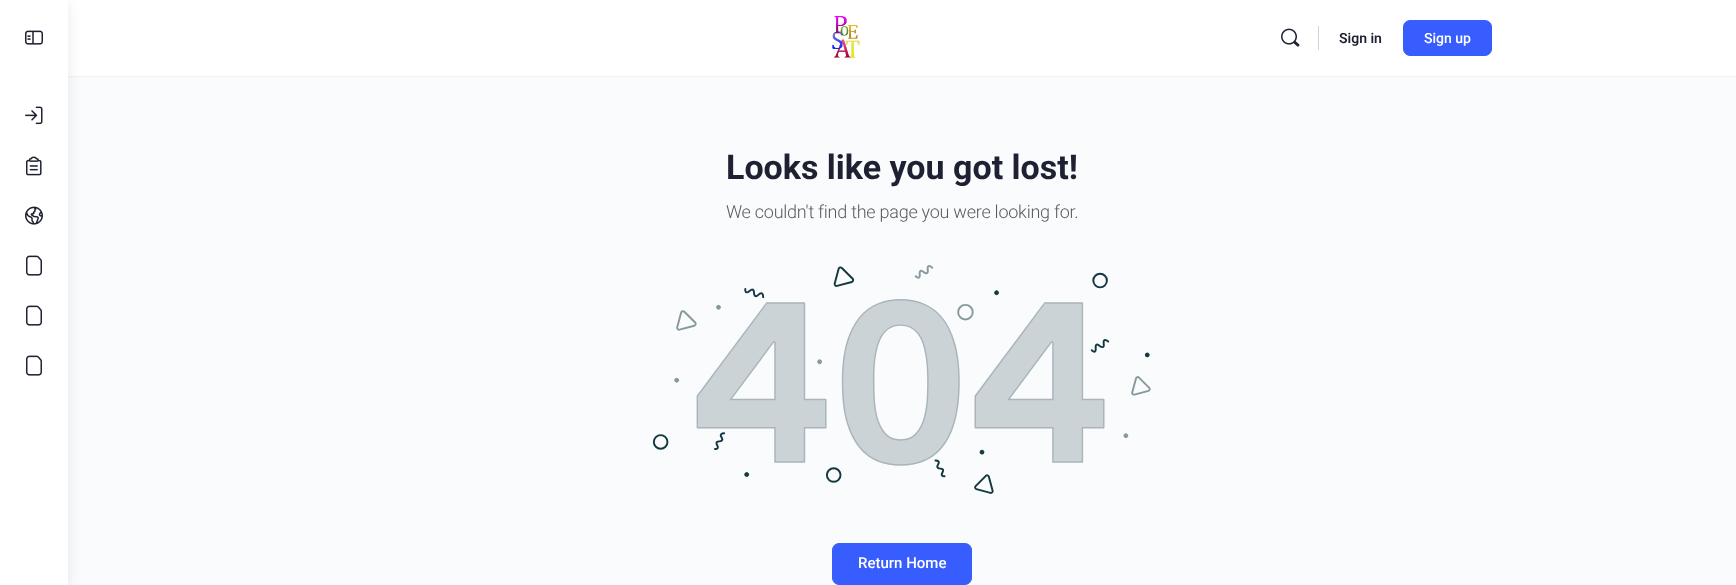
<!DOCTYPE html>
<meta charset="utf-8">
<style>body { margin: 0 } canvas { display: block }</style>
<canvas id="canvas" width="1736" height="585"></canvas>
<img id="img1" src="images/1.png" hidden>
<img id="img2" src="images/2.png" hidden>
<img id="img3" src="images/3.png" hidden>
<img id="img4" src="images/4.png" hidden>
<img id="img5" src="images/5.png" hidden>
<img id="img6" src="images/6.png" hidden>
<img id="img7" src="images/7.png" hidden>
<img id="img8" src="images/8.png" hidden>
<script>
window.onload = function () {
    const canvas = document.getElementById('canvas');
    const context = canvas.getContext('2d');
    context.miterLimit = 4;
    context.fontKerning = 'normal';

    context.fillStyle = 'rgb(250, 251, 253)';
    context.fillRect(0, 0, 1736, 585);
    context.fillStyle = 'rgb(242, 243, 246)';
    context.fillRect(68, 76, 1668, 1);
    context.fillStyle = 'rgb(255, 255, 255)';
    context.fillRect(68, 0, 1668, 76);
    context.fillStyle = 'rgba(18, 43, 70, 0.1)';
    context.filter = 'blur(6.5px)';
    context.beginPath();
    context.rect(0, 3, 68, 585);
    context.fill();
    context.filter = 'none';
    context.fillStyle = 'rgb(255, 255, 255)';
    context.fillRect(0, 0, 68, 585);
    context.drawImage(document.getElementById('img1'), 25, 30, 18, 15);
    context.drawImage(document.getElementById('img2'), 25, 106, 18, 19);
    context.drawImage(document.getElementById('img3'), 26, 156, 16, 20);
    context.drawImage(document.getElementById('img4'), 25, 206, 18, 19);
    context.drawImage(document.getElementById('img5'), 26, 255, 16, 21);
    context.drawImage(document.getElementById('img5'), 26, 305, 16, 21);
    context.drawImage(document.getElementById('img5'), 26, 355, 16, 21);
    context.drawImage(document.getElementById('img6'), 832, 15, 28, 43);
    context.drawImage(document.getElementById('img7'), 1281, 28, 19, 19);
    context.fillStyle = 'rgb(210, 211, 214)';
    context.fillRect(1318, 26, 1, 24);
    context.fillStyle = 'rgb(56, 93, 255)';
    context.beginPath();
    context.roundRect(1403.5, 20.5, 88, 35, 6.5);
    context.fill();
    context.strokeStyle = 'rgb(56, 93, 255)';
    context.stroke();
    context.drawImage(document.getElementById('img8'), 652, 265, 499, 229);
    context.beginPath();
    context.roundRect(832.5, 543.5, 139, 41, 6.5);
    context.fill();
    context.stroke();
    context.font = '600 14px Roboto';
    context.fillStyle = 'rgb(30, 33, 50)';
    context.fillText('Sign in', 1339, 43);
    context.font = '500 14px Roboto';
    context.fillStyle = 'rgb(255, 255, 255)';
    context.fillText('Sign up', 1424, 43);
    context.font = 'bold 34px Roboto';
    context.fillStyle = 'rgb(30, 33, 50)';
    context.fillText('Looks like you got lost!', 726, 179);
    context.letterSpacing = '-0.25px';
    context.font = '300 18px Roboto';
    context.fillStyle = 'rgb(90, 90, 90)';
    context.fillText('We couldn\'t find the page you were looking for.', 726, 218);
    context.letterSpacing = '0px';
    context.font = '500 15px Roboto';
    context.fillStyle = 'rgb(255, 255, 255)';
    context.fillText('Return Home', 858, 568);
};
</script>
